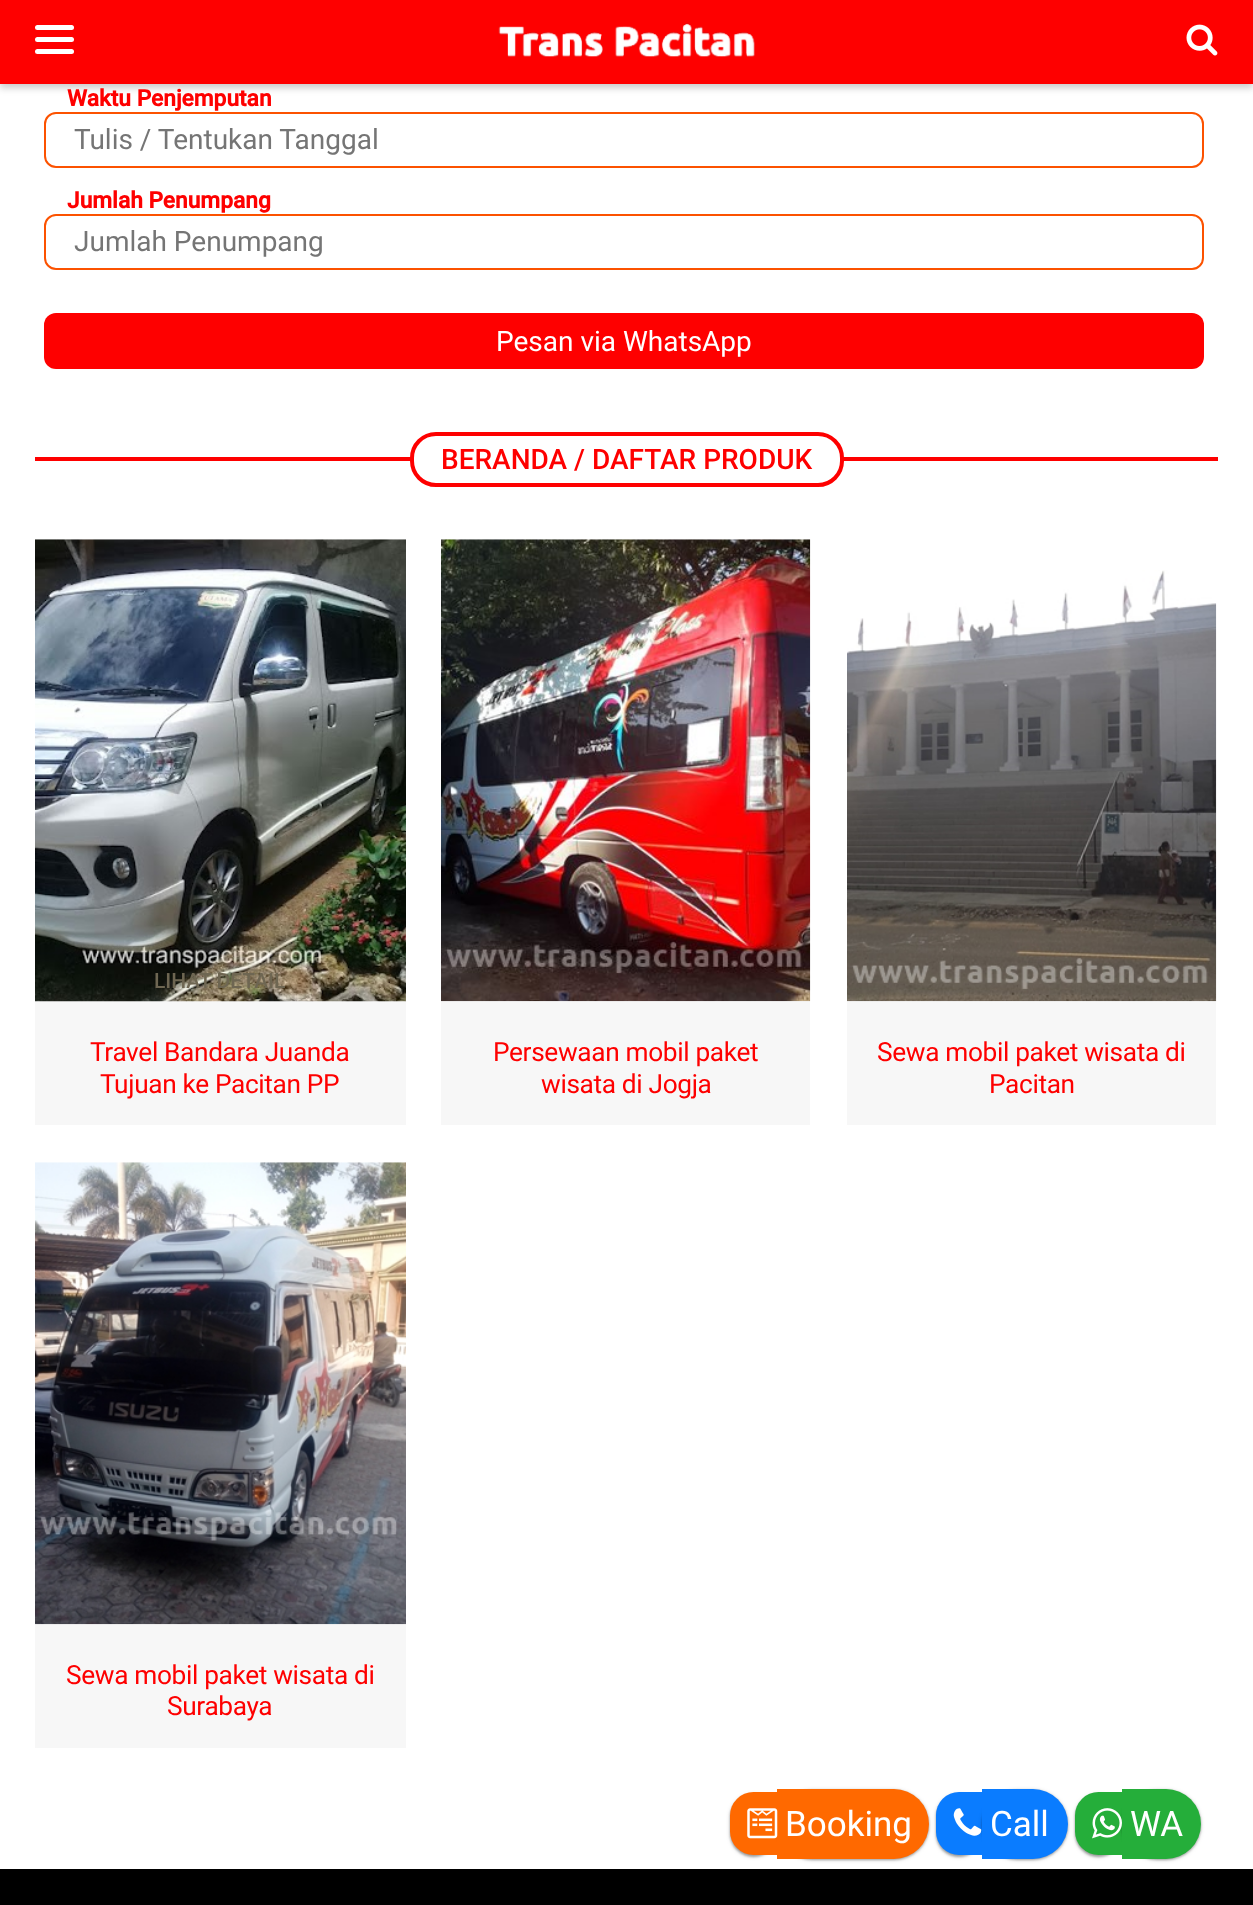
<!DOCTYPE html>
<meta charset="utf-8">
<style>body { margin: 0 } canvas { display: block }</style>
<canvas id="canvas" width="1253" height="1905"></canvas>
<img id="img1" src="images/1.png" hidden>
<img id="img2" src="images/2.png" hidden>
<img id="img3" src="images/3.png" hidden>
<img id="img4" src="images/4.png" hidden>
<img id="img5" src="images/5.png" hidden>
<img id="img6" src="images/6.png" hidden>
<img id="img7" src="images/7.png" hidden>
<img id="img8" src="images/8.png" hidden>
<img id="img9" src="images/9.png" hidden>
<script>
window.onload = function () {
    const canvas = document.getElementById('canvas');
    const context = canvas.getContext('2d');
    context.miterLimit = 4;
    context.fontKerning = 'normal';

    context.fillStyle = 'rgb(255, 255, 255)';
    context.fillRect(0, 0, 1253, 1905);
    context.fillStyle = 'rgba(0, 0, 0, 0.2)';
    context.filter = 'blur(3.5px)';
    context.beginPath();
    context.rect(0, 4, 1253, 84);
    context.fill();
    context.filter = 'none';
    context.fillStyle = 'rgb(254, 0, 0)';
    context.fillRect(0, 0, 1253, 84);
    context.fillStyle = 'rgb(255, 255, 255)';
    context.beginPath();
    context.roundRect(35, 25, 39, 5, 2.5);
    context.fill();
    context.beginPath();
    context.roundRect(35, 37, 39, 5, 2.5);
    context.fill();
    context.beginPath();
    context.roundRect(35, 49, 39, 5, 2.5);
    context.fill();
    context.drawImage(document.getElementById('img1'), 498, 23, 257, 34);
    context.drawImage(document.getElementById('img2'), 1186, 24, 32, 32);
    context.beginPath();
    context.roundRect(45, 113, 1158, 54, 11);
    context.strokeStyle = 'rgb(252, 82, 0)';
    context.lineWidth = 2;
    context.stroke();
    context.beginPath();
    context.roundRect(45, 215, 1158, 54, 11);
    context.stroke();
    context.fillStyle = 'rgb(254, 0, 0)';
    context.beginPath();
    context.roundRect(44, 313, 1160, 56, 12);
    context.fill();
    context.fillRect(35, 457, 1183, 4);
    context.fillStyle = 'rgb(255, 255, 255)';
    context.beginPath();
    context.roundRect(412, 434, 430, 51, 24);
    context.fill();
    context.strokeStyle = 'rgb(254, 0, 0)';
    context.lineWidth = 4;
    context.stroke();
    context.fillStyle = 'rgb(247, 247, 247)';
    context.fillRect(35, 1001, 371, 124);
    context.drawImage(document.getElementById('img3'), 35, 539, 371, 463);
    context.fillRect(441, 1001, 369, 124);
    context.drawImage(document.getElementById('img4'), 441, 539, 370, 463);
    context.fillRect(847, 1001, 369, 124);
    context.drawImage(document.getElementById('img5'), 847, 570, 370, 432);
    context.fillRect(35, 1624, 371, 124);
    context.drawImage(document.getElementById('img6'), 35, 1162, 371, 463);
    context.fillStyle = 'rgba(0, 0, 0, 0.3)';
    context.filter = 'blur(1px)';
    context.beginPath();
    context.roundRect(730, 1794, 47, 63, 23.5);
    context.fill();
    context.filter = 'none';
    context.fillStyle = 'rgba(0, 0, 0, 0.15)';
    context.filter = 'blur(2px)';
    context.beginPath();
    context.roundRect(730, 1794, 47, 63, 23.5);
    context.fill();
    context.filter = 'none';
    context.fillStyle = 'rgb(255, 105, 0)';
    context.beginPath();
    context.roundRect(730, 1792, 47, 63, [23.5, 0, 0, 23.5]);
    context.fill();
    context.fillStyle = 'rgba(0, 0, 0, 0.3)';
    context.filter = 'blur(1px)';
    context.beginPath();
    context.roundRect(777, 1790, 152, 70, 35);
    context.fill();
    context.filter = 'none';
    context.fillStyle = 'rgba(0, 0, 0, 0.15)';
    context.filter = 'blur(2px)';
    context.beginPath();
    context.roundRect(777, 1790, 152, 70, 35);
    context.fill();
    context.filter = 'none';
    context.fillStyle = 'rgb(255, 105, 0)';
    context.beginPath();
    context.roundRect(777, 1789, 152, 70, [0, 35, 35, 0]);
    context.fill();
    context.drawImage(document.getElementById('img7'), 747, 1808, 31, 31);
    context.fillStyle = 'rgba(0, 0, 0, 0.3)';
    context.filter = 'blur(1px)';
    context.beginPath();
    context.roundRect(936, 1794, 46, 63, 23);
    context.fill();
    context.filter = 'none';
    context.fillStyle = 'rgba(0, 0, 0, 0.15)';
    context.filter = 'blur(2px)';
    context.beginPath();
    context.roundRect(936, 1794, 46, 63, 23);
    context.fill();
    context.filter = 'none';
    context.fillStyle = 'rgb(10, 124, 255)';
    context.beginPath();
    context.roundRect(936, 1792, 46, 63, [23, 0, 0, 23]);
    context.fill();
    context.fillStyle = 'rgba(0, 0, 0, 0.3)';
    context.filter = 'blur(1px)';
    context.beginPath();
    context.roundRect(982, 1790, 86, 70, 35);
    context.fill();
    context.filter = 'none';
    context.fillStyle = 'rgba(0, 0, 0, 0.15)';
    context.filter = 'blur(2px)';
    context.beginPath();
    context.roundRect(982, 1790, 86, 70, 35);
    context.fill();
    context.filter = 'none';
    context.fillStyle = 'rgb(10, 124, 255)';
    context.beginPath();
    context.roundRect(982, 1789, 86, 70, [0, 35, 35, 0]);
    context.fill();
    context.drawImage(document.getElementById('img8'), 953, 1808, 29, 28);
    context.fillStyle = 'rgba(0, 0, 0, 0.3)';
    context.filter = 'blur(1px)';
    context.beginPath();
    context.roundRect(1075, 1794, 47, 63, 23.5);
    context.fill();
    context.filter = 'none';
    context.fillStyle = 'rgba(0, 0, 0, 0.15)';
    context.filter = 'blur(2px)';
    context.beginPath();
    context.roundRect(1075, 1794, 47, 63, 23.5);
    context.fill();
    context.filter = 'none';
    context.fillStyle = 'rgb(37, 174, 58)';
    context.beginPath();
    context.roundRect(1075, 1792, 47, 63, [23.5, 0, 0, 23.5]);
    context.fill();
    context.fillStyle = 'rgba(0, 0, 0, 0.3)';
    context.filter = 'blur(1px)';
    context.beginPath();
    context.roundRect(1122, 1790, 79, 70, 35);
    context.fill();
    context.filter = 'none';
    context.fillStyle = 'rgba(0, 0, 0, 0.15)';
    context.filter = 'blur(2px)';
    context.beginPath();
    context.roundRect(1122, 1790, 79, 70, 35);
    context.fill();
    context.filter = 'none';
    context.fillStyle = 'rgb(37, 174, 58)';
    context.beginPath();
    context.roundRect(1122, 1789, 79, 70, [0, 35, 35, 0]);
    context.fill();
    context.drawImage(document.getElementById('img9'), 1092, 1808, 30, 31);
    context.fillStyle = 'rgb(0, 0, 0)';
    context.fillRect(0, 1869, 1253, 36);
    context.font = 'bold 22.75px Roboto';
    context.fillStyle = 'rgb(254, 0, 0)';
    context.fillText('Waktu Penjemputan', 67, 106);
    context.font = '28px Roboto';
    context.fillStyle = 'rgb(117, 117, 117)';
    context.fillText('Tulis / Tentukan Tanggal', 74, 149);
    context.font = 'bold 22.75px Roboto';
    context.fillStyle = 'rgb(254, 0, 0)';
    context.fillText('Jumlah Penumpang', 67, 208);
    context.font = '28px Roboto';
    context.fillStyle = 'rgb(117, 117, 117)';
    context.fillText('Jumlah Penumpang', 74, 251);
    context.fillStyle = 'rgb(255, 255, 255)';
    context.fillText('Pesan via WhatsApp', 496, 351);
    context.font = '500 28px Roboto';
    context.fillStyle = 'rgb(254, 0, 0)';
    context.fillText('BERANDA / DAFTAR PRODUK', 441, 469);
    context.font = '500 21px Roboto';
    context.fillStyle = 'rgb(110, 102, 82)';
    context.fillText('LIHAT DETAIL', 154, 988);
    context.letterSpacing = '-0.35px';
    context.font = '26.25px Roboto';
    context.fillStyle = 'rgb(254, 0, 0)';
    context.fillText('Travel Bandara Juanda', 90, 1061);
    context.fillText('Tujuan ke Pacitan PP', 100, 1093);
    context.fillText('Persewaan mobil paket', 493, 1061);
    context.fillText('wisata di Jogja', 541, 1093);
    context.fillText('Sewa mobil paket wisata di', 877, 1061);
    context.fillText('Pacitan', 989, 1093);
    context.fillText('Sewa mobil paket wisata di', 66, 1684);
    context.fillText('Surabaya', 167, 1715);
    context.letterSpacing = '0px';
    context.font = '35px Roboto';
    context.fillStyle = 'rgb(255, 255, 255)';
    context.fillText('Booking', 785, 1836);
    context.fillText('Call', 990, 1836);
    context.fillText('WA', 1130, 1836);
};
</script>
